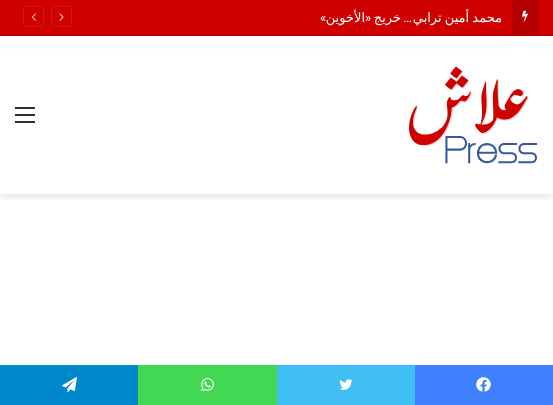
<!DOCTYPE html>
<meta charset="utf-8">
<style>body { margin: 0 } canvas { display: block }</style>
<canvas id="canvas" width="553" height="405"></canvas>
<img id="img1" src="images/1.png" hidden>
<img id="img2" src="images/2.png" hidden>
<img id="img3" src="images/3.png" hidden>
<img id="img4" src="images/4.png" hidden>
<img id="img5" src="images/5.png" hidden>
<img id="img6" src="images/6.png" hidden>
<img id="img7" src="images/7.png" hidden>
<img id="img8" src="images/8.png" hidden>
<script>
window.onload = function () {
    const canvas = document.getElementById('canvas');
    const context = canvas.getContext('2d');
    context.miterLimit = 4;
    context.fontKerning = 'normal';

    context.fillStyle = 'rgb(255, 255, 255)';
    context.fillRect(0, 0, 553, 405);
    context.save();
    context.beginPath();
    context.rect(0, 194, 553, 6);
    context.clip();
    context.fillStyle = 'rgba(0, 0, 0, 0.1)';
    context.filter = 'blur(3.5px)';
    context.beginPath();
    context.rect(0, 39, 553, 158);
    context.fill();
    context.filter = 'none';
    context.restore();
    context.fillStyle = 'rgb(206, 0, 0)';
    context.fillRect(0, 0, 553, 35);
    context.fillStyle = 'rgb(185, 0, 0)';
    context.fillRect(0, 35, 553, 1);
    context.fillStyle = 'rgb(181, 0, 0)';
    context.fillRect(512, 0, 26, 35);
    context.drawImage(document.getElementById('img1'), 522, 10, 6, 12);
    context.beginPath();
    context.moveTo(70, 26.5);
    context.lineTo(53, 26.5);
    context.bezierCurveTo(52, 26.5, 51.5, 26, 51.5, 25);
    context.lineTo(51.5, 8);
    context.bezierCurveTo(51.5, 7, 52, 6.5, 53, 6.5);
    context.lineTo(70, 6.5);
    context.bezierCurveTo(71, 6.5, 71.5, 7, 71.5, 8);
    context.lineTo(71.5, 25);
    context.bezierCurveTo(71.5, 26, 71, 26.5, 70, 26.5);
    context.closePath();
    context.strokeStyle = 'rgb(210, 20, 20)';
    context.stroke();
    context.drawImage(document.getElementById('img2'), 59, 13, 5, 8);
    context.beginPath();
    context.moveTo(42, 26.5);
    context.lineTo(25, 26.5);
    context.bezierCurveTo(24, 26.5, 23.5, 26, 23.5, 25);
    context.lineTo(23.5, 8);
    context.bezierCurveTo(23.5, 7, 24, 6.5, 25, 6.5);
    context.lineTo(42, 6.5);
    context.bezierCurveTo(43, 6.5, 43.5, 7, 43.5, 8);
    context.lineTo(43.5, 25);
    context.bezierCurveTo(43.5, 26, 43, 26.5, 42, 26.5);
    context.closePath();
    context.stroke();
    context.drawImage(document.getElementById('img3'), 31, 13, 5, 8);
    context.drawImage(document.getElementById('img4'), 409, 66, 129, 98);
    context.fillStyle = 'rgb(44, 47, 52)';
    context.fillRect(15, 114, 20, 2);
    context.fillRect(15, 107, 20, 2);
    context.fillRect(15, 121, 20, 2);
    context.fillStyle = 'rgb(64, 128, 255)';
    context.fillRect(415, 365, 138, 40);
    context.drawImage(document.getElementById('img5'), 476, 377, 15, 15);
    context.fillStyle = 'rgb(64, 191, 245)';
    context.fillRect(277, 365, 138, 40);
    context.drawImage(document.getElementById('img6'), 339, 379, 14, 11);
    context.fillStyle = 'rgb(67, 216, 84)';
    context.fillRect(138, 365, 139, 40);
    context.drawImage(document.getElementById('img7'), 201, 378, 13, 13);
    context.fillStyle = 'rgb(0, 136, 204)';
    context.fillRect(0, 365, 138, 40);
    context.drawImage(document.getElementById('img8'), 62, 377, 15, 15);
    context.wordSpacing = '-1px';
    context.direction = 'rtl';
    context.font = '13px DejaVu Sans';
    context.fillStyle = 'rgb(255, 255, 255)';
    context.fillText('محمد أمين ترابي', 502, 22);
    context.wordSpacing = '0px';
    context.font = '13px Roboto';
    context.fillText('…', 412, 22);
    context.font = '13px DejaVu Sans';
    context.fillText('خريج', 401, 22);
    context.font = '13px Roboto';
    context.fillText('«', 371, 22);
    context.font = '13px DejaVu Sans';
    context.fillText('الأخوين', 365, 22);
    context.font = '13px Roboto';
    context.fillText('»', 326, 22);
};
</script>
